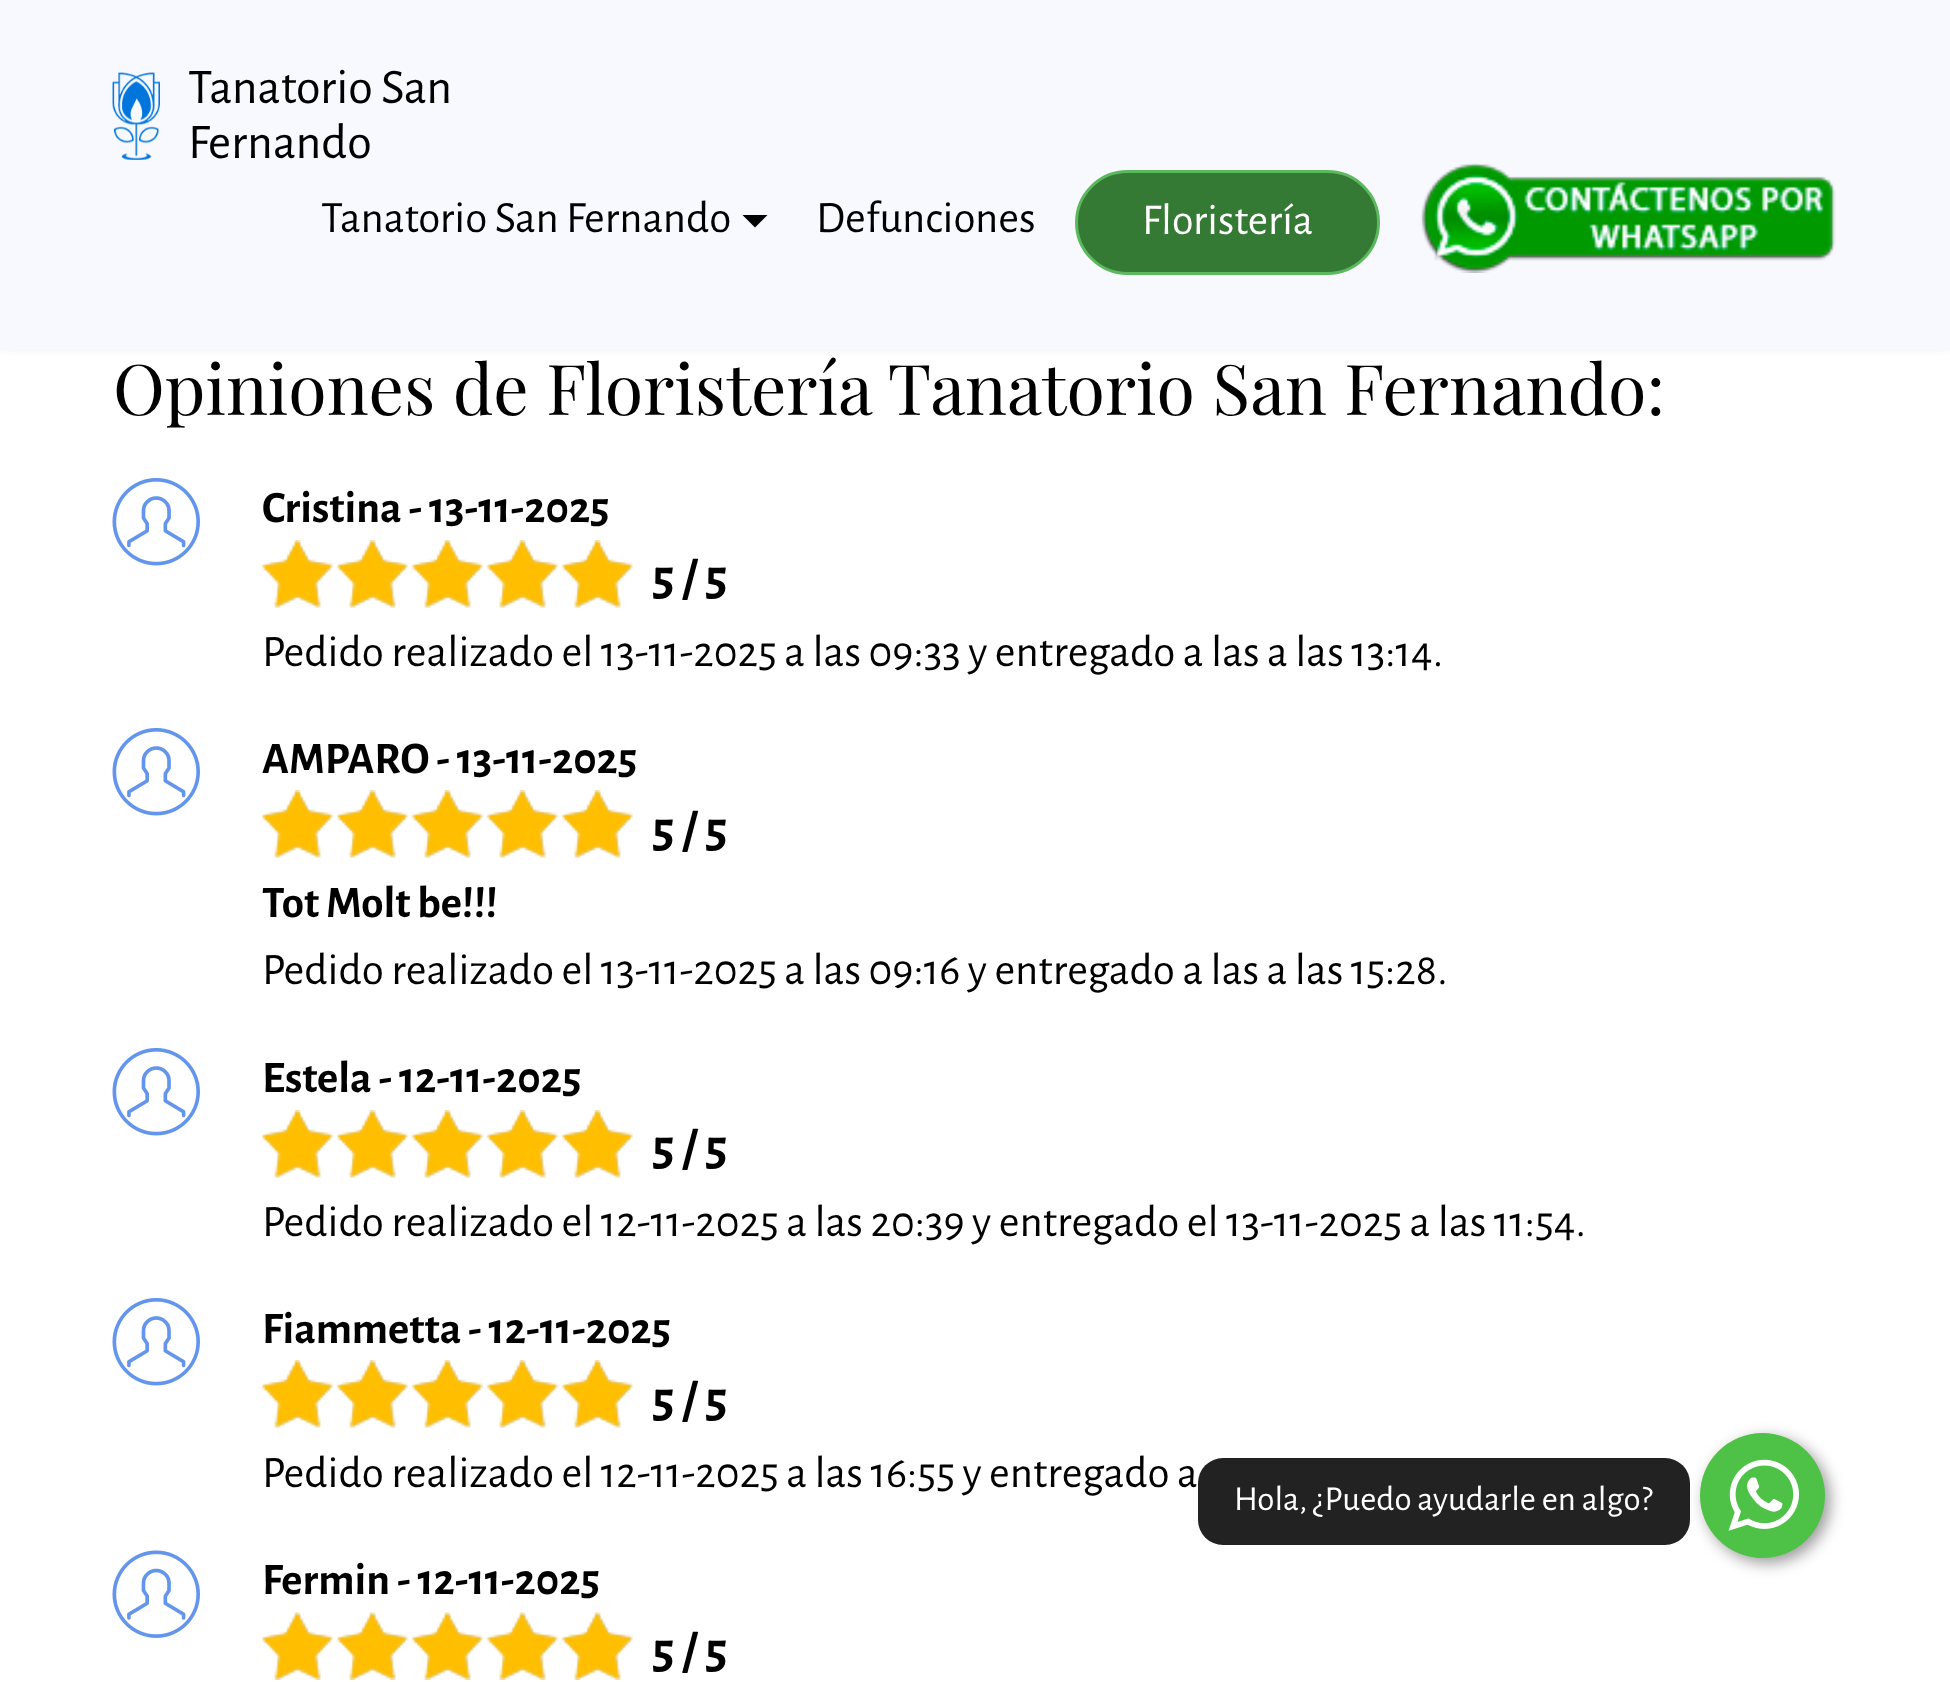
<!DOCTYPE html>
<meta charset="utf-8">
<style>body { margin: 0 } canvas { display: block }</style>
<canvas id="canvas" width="1950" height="1682"></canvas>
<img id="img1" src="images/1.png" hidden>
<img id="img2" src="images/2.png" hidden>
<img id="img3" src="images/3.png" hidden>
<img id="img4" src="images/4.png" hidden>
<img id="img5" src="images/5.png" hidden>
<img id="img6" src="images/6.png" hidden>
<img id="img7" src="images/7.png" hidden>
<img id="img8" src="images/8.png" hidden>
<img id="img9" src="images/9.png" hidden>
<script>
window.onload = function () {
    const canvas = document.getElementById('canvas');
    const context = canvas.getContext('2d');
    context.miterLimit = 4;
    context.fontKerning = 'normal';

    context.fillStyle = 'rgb(255, 255, 255)';
    context.fillRect(0, 0, 1950, 1682);
    context.fillStyle = 'rgb(170, 170, 170)';
    context.filter = 'blur(6px)';
    context.beginPath();
    context.rect(0, 218, 1950, 125);
    context.fill();
    context.filter = 'none';
    context.fillStyle = 'rgb(248, 248, 255)';
    context.fillRect(0, 0, 1950, 350);
    context.drawImage(document.getElementById('img1'), 112, 72, 48, 88);
    context.fillStyle = 'rgb(0, 0, 0)';
    context.beginPath();
    context.moveTo(742.5, 215);
    context.lineTo(767.5, 215);
    context.lineTo(755, 227.5);
    context.closePath();
    context.fill();
    context.fillStyle = 'rgb(52, 121, 52)';
    context.beginPath();
    context.roundRect(1076.5, 171.5, 302, 102, 51);
    context.fill();
    context.strokeStyle = 'rgb(92, 184, 92)';
    context.lineWidth = 3;
    context.stroke();
    context.drawImage(document.getElementById('img2'), 1420, 163, 416, 110);
    context.drawImage(document.getElementById('img3'), 112, 478, 88, 88);
    context.drawImage(document.getElementById('img4'), 262, 540, 371, 68);
    context.drawImage(document.getElementById('img5'), 262, 540, 371, 68);
    context.drawImage(document.getElementById('img3'), 112, 728, 88, 88);
    context.drawImage(document.getElementById('img4'), 262, 790, 371, 68);
    context.drawImage(document.getElementById('img5'), 262, 790, 371, 68);
    context.drawImage(document.getElementById('img3'), 112, 1048, 88, 88);
    context.drawImage(document.getElementById('img4'), 262, 1110, 371, 68);
    context.drawImage(document.getElementById('img5'), 262, 1110, 371, 68);
    context.drawImage(document.getElementById('img3'), 112, 1298, 88, 88);
    context.drawImage(document.getElementById('img4'), 262, 1360, 371, 68);
    context.drawImage(document.getElementById('img5'), 262, 1360, 371, 68);
    context.drawImage(document.getElementById('img6'), 112, 1550, 88, 88);
    context.drawImage(document.getElementById('img7'), 262, 1612, 371, 68);
    context.drawImage(document.getElementById('img8'), 262, 1612, 371, 68);
    context.fillStyle = 'rgb(34, 34, 34)';
    context.beginPath();
    context.roundRect(1198, 1458, 492, 87, 25);
    context.fill();
    context.fillStyle = 'rgba(0, 0, 0, 0.4)';
    context.filter = 'blur(7.5px)';
    context.beginPath();
    context.roundRect(1705, 1438, 125, 125, 62.5);
    context.fill();
    context.filter = 'none';
    context.fillStyle = 'rgb(77, 194, 71)';
    context.beginPath();
    context.arc(1762.5, 1495.5, 62.5, 0, 2 * Math.PI);
    context.fill();
    context.drawImage(document.getElementById('img9'), 1728, 1459, 71, 72);
    context.font = '50px Alegreya Sans';
    context.fillStyle = 'rgb(0, 0, 0)';
    context.fillText('Tanatorio San', 188, 103);
    context.fillText('Fernando', 188, 158);
    context.font = '45px Alegreya Sans';
    context.fillText('Tanatorio San Fernando', 321, 232);
    context.fillText('Defunciones', 816, 232);
    context.font = '44px Alegreya Sans';
    context.fillStyle = 'rgb(255, 255, 255)';
    context.fillText('Floristería', 1142, 234);
    context.font = '70px Playfair Display';
    context.fillStyle = 'rgb(0, 0, 0)';
    context.fillText('Opiniones de Floristería Tanatorio San Fernando:', 113, 415);
    context.font = 'bold 45px Alegreya Sans';
    context.fillText('Cristina - 13-11-2025', 262, 522);
    context.font = 'bold 52px Alegreya Sans';
    context.fillText('5 / 5', 652, 594);
    context.font = '45px Alegreya Sans';
    context.fillText('Pedido realizado el 13-11-2025 a las 09:33 y entregado a las a las 13:14.', 262, 666);
    context.font = 'bold 45px Alegreya Sans';
    context.fillText('AMPARO - 13-11-2025', 262, 773);
    context.font = 'bold 52px Alegreya Sans';
    context.fillText('5 / 5', 652, 846);
    context.font = 'bold 45px Alegreya Sans';
    context.fillText('Tot Molt be!!!', 262, 917);
    context.font = '45px Alegreya Sans';
    context.fillText('Pedido realizado el 13-11-2025 a las 09:16 y entregado a las a las 15:28.', 262, 984);
    context.font = 'bold 45px Alegreya Sans';
    context.fillText('Estela - 12-11-2025', 262, 1092);
    context.font = 'bold 52px Alegreya Sans';
    context.fillText('5 / 5', 652, 1164);
    context.font = '45px Alegreya Sans';
    context.fillText('Pedido realizado el 12-11-2025 a las 20:39 y entregado el 13-11-2025 a las 11:54.', 262, 1236);
    context.font = 'bold 45px Alegreya Sans';
    context.fillText('Fiammetta - 12-11-2025', 262, 1343);
    context.font = 'bold 52px Alegreya Sans';
    context.fillText('5 / 5', 652, 1416);
    context.font = '45px Alegreya Sans';
    context.fillText('Pedido realizado el 12-11-2025 a las 16:55 y entregado a', 262, 1487);
    context.font = 'bold 45px Alegreya Sans';
    context.fillText('Fermin - 12-11-2025', 262, 1594);
    context.font = 'bold 52px Alegreya Sans';
    context.fillText('5 / 5', 652, 1667);
    context.font = '35px Alegreya Sans';
    context.fillStyle = 'rgb(255, 255, 255)';
    context.fillText('Hola, ¿Puedo ayudarle en algo?', 1234, 1510);
};
</script>
